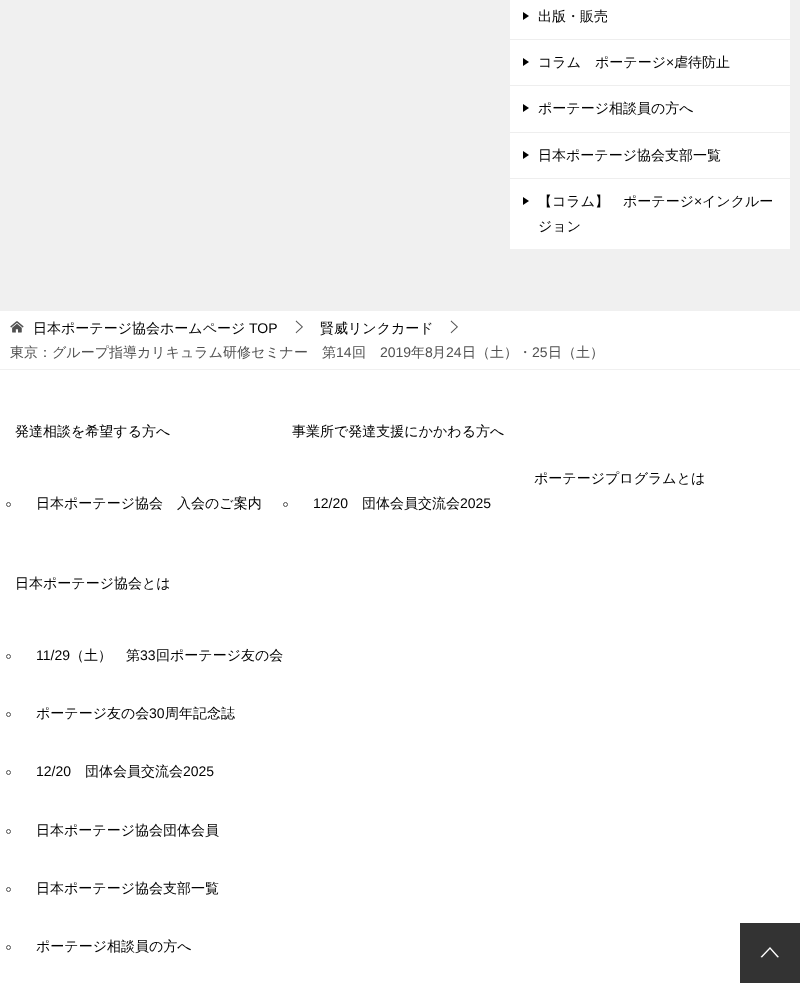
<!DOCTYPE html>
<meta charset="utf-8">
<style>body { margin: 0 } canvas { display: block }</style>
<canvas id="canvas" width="800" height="983"></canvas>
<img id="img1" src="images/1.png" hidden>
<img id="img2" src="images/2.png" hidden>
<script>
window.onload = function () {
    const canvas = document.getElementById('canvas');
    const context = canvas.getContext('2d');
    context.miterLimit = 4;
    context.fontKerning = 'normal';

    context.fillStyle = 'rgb(240, 240, 240)';
    context.fillRect(0, 0, 800, 983);
    context.fillStyle = 'rgb(255, 255, 255)';
    context.fillRect(510, 0, 280, 249);
    context.fillStyle = 'rgb(238, 238, 238)';
    context.fillRect(510, 39, 280, 1);
    context.fillStyle = 'rgb(0, 0, 0)';
    context.beginPath();
    context.moveTo(523, 20);
    context.lineTo(523, 12);
    context.lineTo(529, 16);
    context.closePath();
    context.fill();
    context.fillStyle = 'rgb(238, 238, 238)';
    context.fillRect(510, 85, 280, 1);
    context.fillStyle = 'rgb(0, 0, 0)';
    context.beginPath();
    context.moveTo(523, 66);
    context.lineTo(523, 58);
    context.lineTo(529, 62);
    context.closePath();
    context.fill();
    context.fillStyle = 'rgb(238, 238, 238)';
    context.fillRect(510, 132, 280, 1);
    context.fillStyle = 'rgb(0, 0, 0)';
    context.beginPath();
    context.moveTo(523, 112);
    context.lineTo(523, 104);
    context.lineTo(529, 108);
    context.closePath();
    context.fill();
    context.fillStyle = 'rgb(238, 238, 238)';
    context.fillRect(510, 178, 280, 1);
    context.fillStyle = 'rgb(0, 0, 0)';
    context.beginPath();
    context.moveTo(523, 159);
    context.lineTo(523, 151);
    context.lineTo(529, 155);
    context.closePath();
    context.fill();
    context.beginPath();
    context.moveTo(523, 205);
    context.lineTo(523, 197);
    context.lineTo(529, 201);
    context.closePath();
    context.fill();
    context.fillStyle = 'rgb(255, 255, 255)';
    context.fillRect(0, 311, 800, 58);
    context.drawImage(document.getElementById('img1'), 10, 321, 14, 12);
    context.drawImage(document.getElementById('img2'), 295, 320, 8, 14);
    context.drawImage(document.getElementById('img2'), 450, 320, 8, 14);
    context.fillRect(0, 370, 800, 613);
    context.beginPath();
    context.arc(8.5, 504.5, 2, 0, 2 * Math.PI);
    context.strokeStyle = 'rgb(80, 80, 80)';
    context.stroke();
    context.beginPath();
    context.arc(285.5, 504.5, 2, 0, 2 * Math.PI);
    context.stroke();
    context.beginPath();
    context.arc(8.5, 656.5, 2, 0, 2 * Math.PI);
    context.stroke();
    context.beginPath();
    context.arc(8.5, 714.5, 2, 0, 2 * Math.PI);
    context.stroke();
    context.beginPath();
    context.arc(8.5, 772.5, 2, 0, 2 * Math.PI);
    context.stroke();
    context.beginPath();
    context.arc(8.5, 831.5, 2, 0, 2 * Math.PI);
    context.stroke();
    context.beginPath();
    context.arc(8.5, 889.5, 2, 0, 2 * Math.PI);
    context.stroke();
    context.beginPath();
    context.arc(8.5, 947.5, 2, 0, 2 * Math.PI);
    context.stroke();
    context.fillStyle = 'rgb(51, 51, 51)';
    context.fillRect(740, 923, 60, 60);
    context.fillStyle = 'rgb(255, 255, 255)';
    context.beginPath();
    context.moveTo(770, 947);
    context.lineTo(779, 957);
    context.lineTo(777.5, 957.5);
    context.lineTo(770, 949);
    context.lineTo(762, 957.5);
    context.lineTo(760.5, 957);
    context.closePath();
    context.fill();
    context.font = '500 14px WenQuanYi Zen Hei';
    context.fillStyle = 'rgb(0, 0, 0)';
    context.fillText('出版・販売', 538, 21);
    context.fillText('コラム　ポーテージ', 538, 67);
    context.font = '14px Liberation Sans';
    context.fillText('×', 666, 67);
    context.font = '500 14px WenQuanYi Zen Hei';
    context.fillText('虐待防止', 674, 67);
    context.fillText('ポーテージ相談員の方へ', 538, 113);
    context.fillText('日本ポーテージ協会支部一覧', 538, 160);
    context.fillText('【コラム】　ポーテージ', 538, 206);
    context.font = '14px Liberation Sans';
    context.fillText('×', 694, 206);
    context.font = '500 14px WenQuanYi Zen Hei';
    context.fillText('インクルー', 702, 206);
    context.fillText('ジョン', 538, 231);
    context.fillText('日本ポーテージ協会ホームページ', 33, 333);
    context.font = '14px Liberation Sans';
    context.fillText('TOP', 249, 333);
    context.font = '500 14px WenQuanYi Zen Hei';
    context.fillText('賢威リンクカード', 320, 333);
    context.fillStyle = 'rgb(80, 80, 80)';
    context.fillText('東京：グループ指導カリキュラム研修セミナー　第', 10, 357);
    context.font = '14px Liberation Sans';
    context.fillText('14', 336, 357);
    context.font = '500 14px WenQuanYi Zen Hei';
    context.fillText('回', 352, 357);
    context.font = '14px Liberation Sans';
    context.fillText('2019', 380, 357);
    context.font = '500 14px WenQuanYi Zen Hei';
    context.fillText('年', 411, 357);
    context.font = '14px Liberation Sans';
    context.fillText('8', 425, 357);
    context.font = '500 14px WenQuanYi Zen Hei';
    context.fillText('月', 432, 357);
    context.font = '14px Liberation Sans';
    context.fillText('24', 446, 357);
    context.font = '500 14px WenQuanYi Zen Hei';
    context.fillText('日（土）・', 462, 357);
    context.font = '14px Liberation Sans';
    context.fillText('25', 532, 357);
    context.font = '500 14px WenQuanYi Zen Hei';
    context.fillText('日（土）', 548, 357);
    context.fillStyle = 'rgb(0, 0, 0)';
    context.fillText('発達相談を希望する方へ', 15, 436);
    context.fillText('日本ポーテージ協会　入会のご案内', 36, 508);
    context.fillText('事業所で発達支援にかかわる方へ', 292, 436);
    context.font = '14px Liberation Sans';
    context.fillText('12/20', 313, 508);
    context.font = '500 14px WenQuanYi Zen Hei';
    context.fillText('団体会員交流会', 362, 508);
    context.font = '14px Liberation Sans';
    context.fillText('2025', 460, 508);
    context.font = '500 14px WenQuanYi Zen Hei';
    context.fillText('ポーテージプログラムとは', 534, 483);
    context.fillText('日本ポーテージ協会とは', 15, 588);
    context.font = '14px Liberation Sans';
    context.fillText('11/29', 36, 660);
    context.font = '500 14px WenQuanYi Zen Hei';
    context.fillText('（土）　第', 70, 660);
    context.font = '14px Liberation Sans';
    context.fillText('33', 140, 660);
    context.font = '500 14px WenQuanYi Zen Hei';
    context.fillText('回ポーテージ友の会', 156, 660);
    context.fillText('ポーテージ友の会', 36, 718);
    context.font = '14px Liberation Sans';
    context.fillText('30', 149, 718);
    context.font = '500 14px WenQuanYi Zen Hei';
    context.fillText('周年記念誌', 165, 718);
    context.font = '14px Liberation Sans';
    context.fillText('12/20', 36, 776);
    context.font = '500 14px WenQuanYi Zen Hei';
    context.fillText('団体会員交流会', 85, 776);
    context.font = '14px Liberation Sans';
    context.fillText('2025', 183, 776);
    context.font = '500 14px WenQuanYi Zen Hei';
    context.fillText('日本ポーテージ協会団体会員', 36, 835);
    context.fillText('日本ポーテージ協会支部一覧', 36, 893);
    context.fillText('ポーテージ相談員の方へ', 36, 951);
};
</script>
